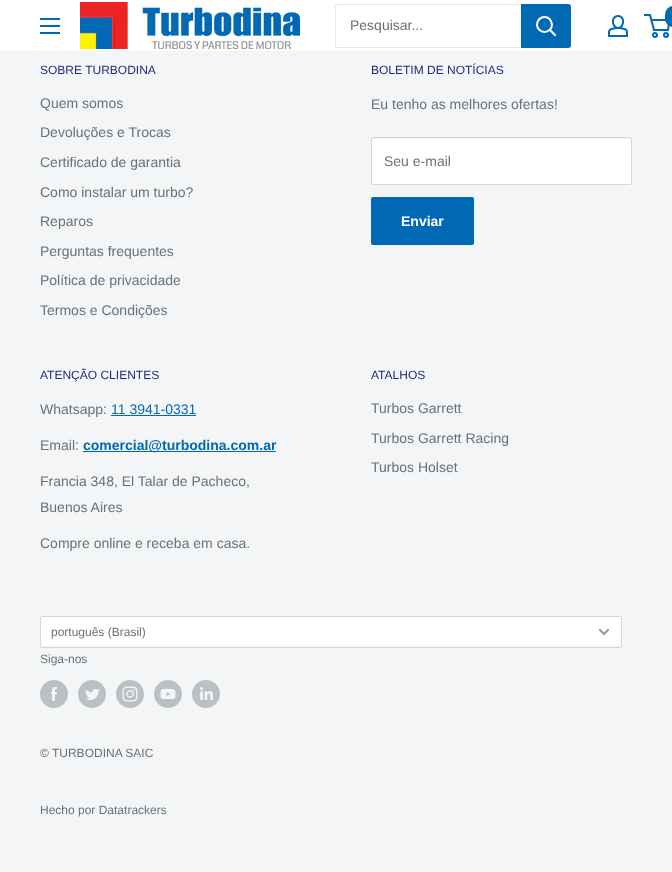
<!DOCTYPE html>
<meta charset="utf-8">
<style>body { margin: 0 } canvas { display: block }</style>
<canvas id="canvas" width="672" height="872"></canvas>
<img id="img1" src="images/1.png" hidden>
<img id="img2" src="images/2.png" hidden>
<img id="img3" src="images/3.png" hidden>
<img id="img4" src="images/4.png" hidden>
<img id="img5" src="images/5.png" hidden>
<img id="img6" src="images/6.png" hidden>
<img id="img7" src="images/7.png" hidden>
<img id="img8" src="images/8.png" hidden>
<script>
window.onload = function () {
    const canvas = document.getElementById('canvas');
    const context = canvas.getContext('2d');
    context.miterLimit = 4;
    context.fontKerning = 'normal';

    context.fillStyle = 'rgb(243, 245, 246)';
    context.fillRect(0, 0, 672, 872);
    context.fillStyle = 'rgb(255, 255, 255)';
    context.fillRect(0, 0, 672, 51);
    context.drawImage(document.getElementById('img1'), 40, 18, 20, 16);
    context.drawImage(document.getElementById('img2'), 80, 2, 220, 47);
    context.fillStyle = 'rgb(227, 231, 250)';
    context.beginPath();
    context.moveTo(336, 47);
    context.bezierCurveTo(336, 48, 337, 48, 338, 48);
    context.lineTo(568, 48);
    context.bezierCurveTo(570, 48, 571, 47, 571, 45);
    context.lineTo(571, 7);
    context.bezierCurveTo(571, 6, 571, 5, 570, 5);
    context.lineTo(570, 38);
    context.bezierCurveTo(570, 40, 572, 47, 567, 47);
    context.closePath();
    context.fill();
    context.beginPath();
    context.moveTo(339, 5);
    context.lineTo(570, 5);
    context.bezierCurveTo(570, 4, 569, 4, 568, 4);
    context.lineTo(338, 4);
    context.bezierCurveTo(336, 4, 335, 5, 335, 7);
    context.lineTo(335, 45);
    context.bezierCurveTo(335, 46, 335, 47, 336, 47);
    context.lineTo(336, 14);
    context.bezierCurveTo(336, 12, 334, 5, 339, 5);
    context.closePath();
    context.fill();
    context.fillStyle = 'rgb(1, 105, 179)';
    context.beginPath();
    context.roundRect(521, 4, 50, 44, [0, 3, 3, 0]);
    context.fill();
    context.beginPath();
    context.moveTo(555, 35);
    context.lineTo(550, 30);
    context.strokeStyle = 'rgb(255, 255, 255)';
    context.lineWidth = 2;
    context.lineCap = 'square';
    context.stroke();
    context.beginPath();
    context.arc(544.5, 24.5, 7.5, 0, 2 * Math.PI);
    context.stroke();
    context.drawImage(document.getElementById('img3'), 608, 15, 20, 22);
    context.beginPath();
    context.arc(655, 35, 2, 0, 2 * Math.PI);
    context.strokeStyle = 'rgb(1, 105, 179)';
    context.stroke();
    context.beginPath();
    context.arc(666, 35, 2, 0, 2 * Math.PI);
    context.stroke();
    context.beginPath();
    context.moveTo(651.5, 20);
    context.lineTo(669.5, 20);
    context.lineTo(668, 30);
    context.lineTo(654, 30);
    context.lineTo(650, 15);
    context.lineTo(644, 15);
    context.lineCap = 'butt';
    context.stroke();
    context.beginPath();
    context.roundRect(665, 6, 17, 21, 10);
    context.fill();
    context.fillStyle = 'rgb(255, 255, 255)';
    context.beginPath();
    context.roundRect(371, 137, 261, 48, 2);
    context.fill();
    context.fillStyle = 'rgb(244, 245, 245)';
    context.beginPath();
    context.moveTo(373, 139);
    context.lineTo(630, 139);
    context.bezierCurveTo(631, 139, 631, 139, 631, 140);
    context.lineTo(631, 138);
    context.lineTo(373, 138);
    context.bezierCurveTo(372, 138, 372, 139, 372, 140);
    context.bezierCurveTo(372, 139, 372, 139, 373, 139);
    context.closePath();
    context.fill();
    context.beginPath();
    context.roundRect(371.5, 137.5, 260, 47, 1.5);
    context.strokeStyle = 'rgb(212, 214, 216)';
    context.lineWidth = 1;
    context.stroke();
    context.fillStyle = 'rgb(1, 105, 179)';
    context.beginPath();
    context.roundRect(371, 197, 103, 48, 2);
    context.fill();
    context.fillRect(111, 415, 85, 1);
    context.fillRect(83, 451, 193, 1);
    context.fillStyle = 'rgb(255, 255, 255)';
    context.beginPath();
    context.roundRect(40, 616, 582, 32, 2);
    context.fill();
    context.fillStyle = 'rgb(242, 243, 243)';
    context.beginPath();
    context.moveTo(41, 646);
    context.lineTo(42, 647);
    context.lineTo(620, 647);
    context.lineTo(621, 646);
    context.closePath();
    context.fill();
    context.beginPath();
    context.roundRect(40.5, 616.5, 581, 31, 1.5);
    context.stroke();
    context.beginPath();
    context.moveTo(608, 630);
    context.lineTo(604, 634);
    context.lineTo(600, 630);
    context.strokeStyle = 'rgb(149, 156, 161)';
    context.lineWidth = 2;
    context.lineCap = 'square';
    context.stroke();
    context.drawImage(document.getElementById('img4'), 40, 680, 28, 28);
    context.drawImage(document.getElementById('img5'), 78, 680, 28, 28);
    context.drawImage(document.getElementById('img6'), 116, 680, 28, 28);
    context.drawImage(document.getElementById('img7'), 154, 680, 28, 28);
    context.drawImage(document.getElementById('img8'), 192, 680, 28, 28);
    context.font = '14px Liberation Sans';
    context.fillStyle = 'rgb(103, 114, 121)';
    context.fillText('Pesquisar...', 350, 30);
    context.font = '12px Liberation Sans';
    context.fillStyle = 'rgb(30, 45, 125)';
    context.fillText('SOBRE TURBODINA', 40, 74);
    context.font = '14px Liberation Sans';
    context.fillStyle = 'rgb(103, 114, 121)';
    context.fillText('Quem somos', 40, 108);
    context.fillText('Devoluções e Trocas', 40, 137);
    context.fillText('Certificado de garantia', 40, 167);
    context.fillText('Como instalar um turbo?', 40, 197);
    context.fillText('Reparos', 40, 226);
    context.fillText('Perguntas frequentes', 40, 256);
    context.fillText('Política de privacidade', 40, 285);
    context.fillText('Termos e Condições', 40, 315);
    context.font = '12px Liberation Sans';
    context.fillStyle = 'rgb(30, 45, 125)';
    context.fillText('BOLETIM DE NOTÍCIAS', 371, 74);
    context.font = '14px Liberation Sans';
    context.fillStyle = 'rgb(103, 114, 121)';
    context.fillText('Eu tenho as melhores ofertas!', 371, 109);
    context.fillText('Seu e-mail', 384, 166);
    context.font = 'bold 14px Liberation Sans';
    context.fillStyle = 'rgb(255, 255, 255)';
    context.fillText('Enviar', 401, 226);
    context.font = '12px Liberation Sans';
    context.fillStyle = 'rgb(30, 45, 125)';
    context.fillText('ATENÇÃO CLIENTES', 40, 379);
    context.font = '14px Liberation Sans';
    context.fillStyle = 'rgb(103, 114, 121)';
    context.fillText('Whatsapp:', 40, 414);
    context.fillStyle = 'rgb(1, 105, 179)';
    context.fillText('11 3941-0331', 111, 414);
    context.fillStyle = 'rgb(103, 114, 121)';
    context.fillText('Email:', 40, 450);
    context.font = 'bold 14px Liberation Sans';
    context.fillStyle = 'rgb(1, 105, 179)';
    context.fillText('comercial@turbodina.com.ar', 83, 450);
    context.font = '14px Liberation Sans';
    context.fillStyle = 'rgb(103, 114, 121)';
    context.fillText('Francia 348, El Talar de Pacheco,', 40, 486);
    context.fillText('Buenos Aires', 40, 512);
    context.fillText('Compre online e receba em casa.', 40, 548);
    context.font = '12px Liberation Sans';
    context.fillStyle = 'rgb(30, 45, 125)';
    context.fillText('ATALHOS', 371, 379);
    context.font = '14px Liberation Sans';
    context.fillStyle = 'rgb(103, 114, 121)';
    context.fillText('Turbos Garrett', 371, 413);
    context.fillText('Turbos Garrett Racing', 371, 443);
    context.fillText('Turbos Holset', 371, 472);
    context.font = '12px Liberation Sans';
    context.fillText('português (Brasil)', 51, 636);
    context.fillText('Siga-nos', 40, 663);
    context.fillText('© TURBODINA SAIC', 40, 757);
    context.fillText('Hecho por Datatrackers', 40, 814);
};
</script>
